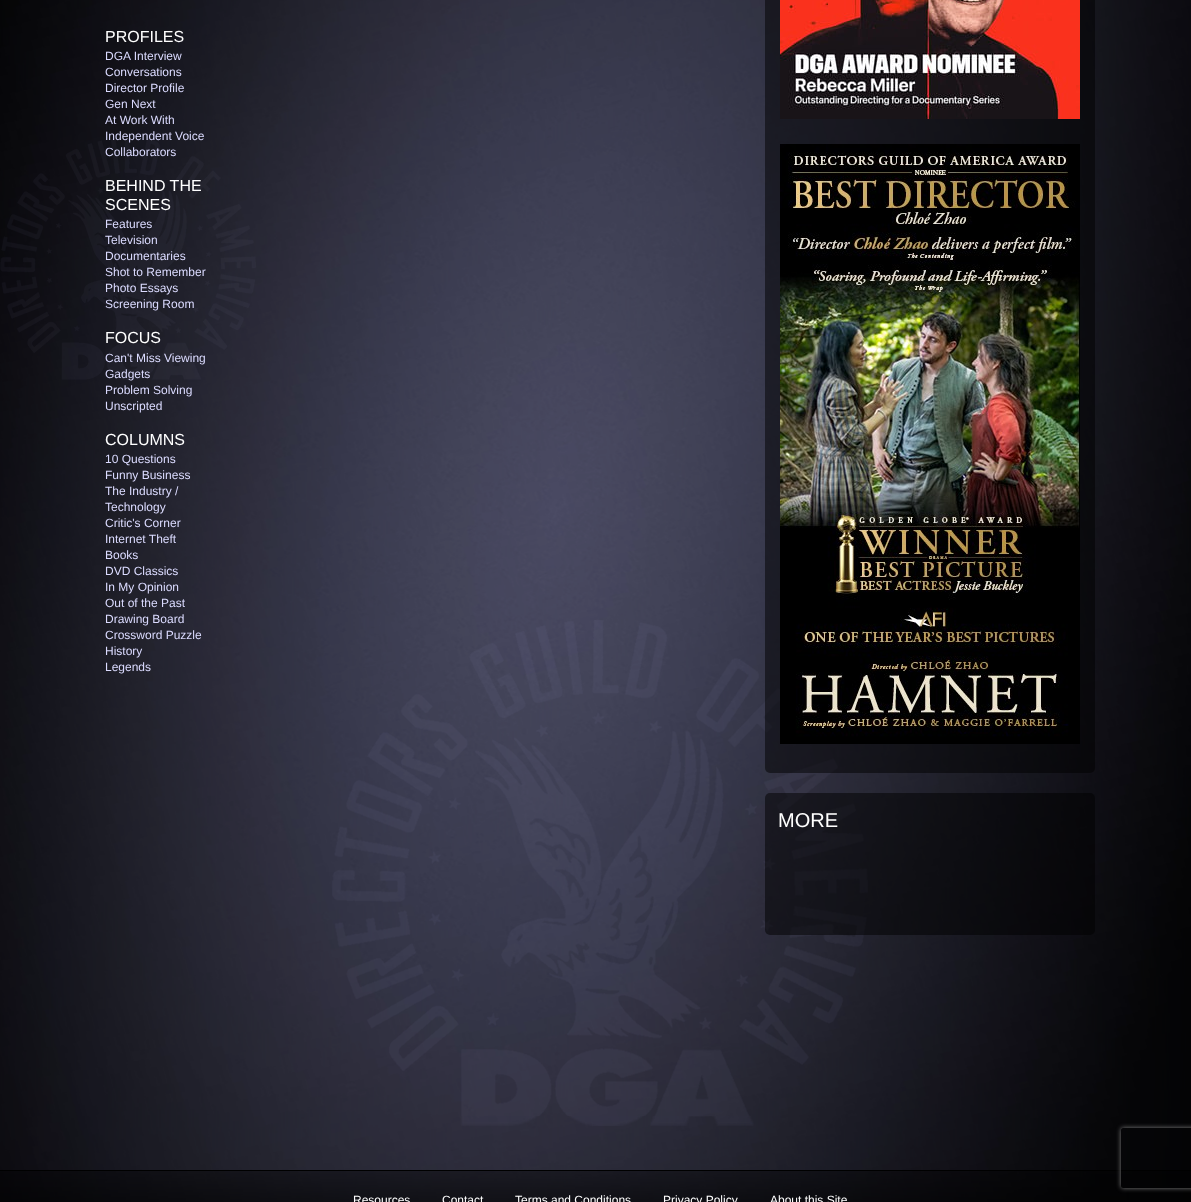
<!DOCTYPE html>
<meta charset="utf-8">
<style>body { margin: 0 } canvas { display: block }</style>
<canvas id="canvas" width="1191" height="1202"></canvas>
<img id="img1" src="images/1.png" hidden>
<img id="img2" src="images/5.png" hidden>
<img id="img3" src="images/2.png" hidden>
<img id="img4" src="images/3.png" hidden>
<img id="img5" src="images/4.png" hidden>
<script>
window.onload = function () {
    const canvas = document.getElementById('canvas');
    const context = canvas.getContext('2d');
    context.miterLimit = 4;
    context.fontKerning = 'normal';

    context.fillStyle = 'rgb(255, 255, 255)';
    context.fillRect(0, 0, 1191, 1202);
    context.drawImage(document.getElementById('img1'), 0, 0, 1191, 1202);
    context.drawImage(document.getElementById('img2'), 332, 620, 536, 506);
    context.fillStyle = 'rgba(0, 0, 0, 0.5)';
    context.beginPath();
    context.roundRect(765, -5, 330, 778, 5);
    context.fill();
    context.drawImage(document.getElementById('img3'), 780, 0, 300, 119);
    context.drawImage(document.getElementById('img4'), 780, 144, 300, 600);
    context.beginPath();
    context.roundRect(765, 793, 330, 142, 5);
    context.fill();
    context.fillStyle = 'rgb(0, 0, 0)';
    context.fillRect(0, 1170, 1191, 1);
    context.drawImage(document.getElementById('img5'), 0, 138, 256, 242);
    context.save();
    context.beginPath();
    context.moveTo(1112, 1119);
    context.lineTo(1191, 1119);
    context.lineTo(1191, 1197);
    context.lineTo(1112, 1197);
    context.closePath();
    context.moveTo(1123, 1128);
    context.lineTo(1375, 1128);
    context.bezierCurveTo(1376, 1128, 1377, 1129, 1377, 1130);
    context.lineTo(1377, 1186);
    context.bezierCurveTo(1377, 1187, 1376, 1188, 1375, 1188);
    context.lineTo(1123, 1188);
    context.bezierCurveTo(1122, 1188, 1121, 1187, 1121, 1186);
    context.lineTo(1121, 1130);
    context.bezierCurveTo(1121, 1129, 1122, 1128, 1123, 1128);
    context.closePath();
    context.clip('evenodd');
    context.fillStyle = 'rgb(128, 128, 128)';
    context.filter = 'blur(2.5px)';
    context.beginPath();
    context.roundRect(1121, 1128, 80, 60, 2);
    context.fill();
    context.filter = 'none';
    context.restore();
    context.font = '16px Liberation Sans';
    context.fillStyle = 'rgb(255, 255, 255)';
    context.fillText('PROFILES', 105, 42);
    context.font = '12px Liberation Sans';
    context.fillStyle = 'rgb(219, 219, 255)';
    context.fillText('DGA Interview', 105, 60);
    context.fillText('Conversations', 105, 76);
    context.fillText('Director Profile', 105, 92);
    context.fillText('Gen Next', 105, 108);
    context.fillText('At Work With', 105, 124);
    context.fillText('Independent Voice', 105, 140);
    context.fillText('Collaborators', 105, 156);
    context.font = '16px Liberation Sans';
    context.fillStyle = 'rgb(255, 255, 255)';
    context.fillText('BEHIND THE', 105, 191);
    context.fillText('SCENES', 105, 210);
    context.font = '12px Liberation Sans';
    context.fillStyle = 'rgb(219, 219, 255)';
    context.fillText('Features', 105, 228);
    context.fillText('Television', 105, 244);
    context.fillText('Documentaries', 105, 260);
    context.fillText('Shot to Remember', 105, 276);
    context.fillText('Photo Essays', 105, 292);
    context.fillText('Screening Room', 105, 308);
    context.font = '16px Liberation Sans';
    context.fillStyle = 'rgb(255, 255, 255)';
    context.fillText('FOCUS', 105, 343);
    context.font = '12px Liberation Sans';
    context.fillStyle = 'rgb(219, 219, 255)';
    context.fillText('Can\'t Miss Viewing', 105, 362);
    context.fillText('Gadgets', 105, 378);
    context.fillText('Problem Solving', 105, 394);
    context.fillText('Unscripted', 105, 410);
    context.font = '16px Liberation Sans';
    context.fillStyle = 'rgb(255, 255, 255)';
    context.fillText('COLUMNS', 105, 445);
    context.font = '12px Liberation Sans';
    context.fillStyle = 'rgb(219, 219, 255)';
    context.fillText('10 Questions', 105, 463);
    context.fillText('Funny Business', 105, 479);
    context.fillText('The Industry /', 105, 495);
    context.fillText('Technology', 105, 511);
    context.fillText('Critic\'s Corner', 105, 527);
    context.fillText('Internet Theft', 105, 543);
    context.fillText('Books', 105, 559);
    context.fillText('DVD Classics', 105, 575);
    context.fillText('In My Opinion', 105, 591);
    context.fillText('Out of the Past', 105, 607);
    context.fillText('Drawing Board', 105, 623);
    context.fillText('Crossword Puzzle', 105, 639);
    context.fillText('History', 105, 655);
    context.fillText('Legends', 105, 671);
    context.font = '20px Liberation Sans';
    context.fillStyle = 'rgb(255, 255, 255)';
    context.fillText('MORE', 778, 827);
    context.font = '12px Liberation Sans';
    context.fillText('Resources', 353, 1204);
    context.fillText('Contact', 442, 1204);
    context.fillText('Terms and Conditions', 515, 1204);
    context.fillText('Privacy Policy', 663, 1204);
    context.fillText('About this Site', 770, 1204);
};
</script>
